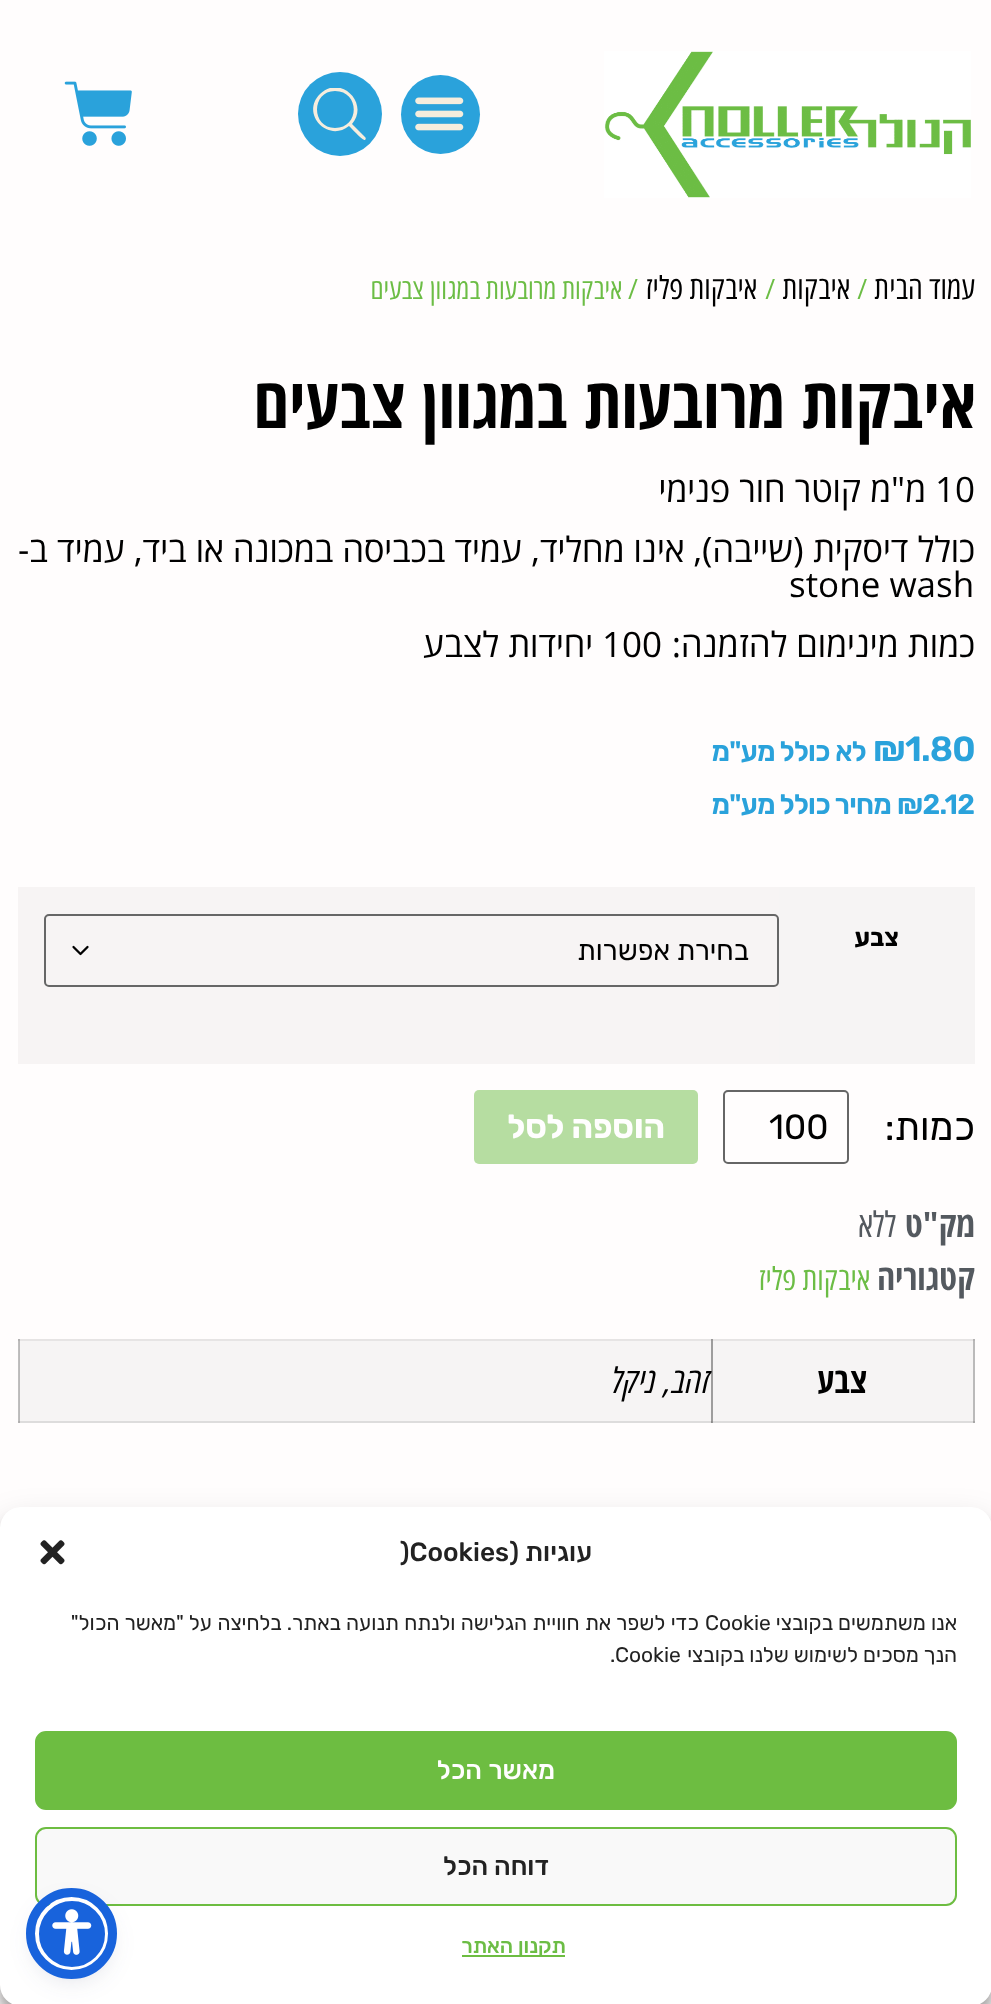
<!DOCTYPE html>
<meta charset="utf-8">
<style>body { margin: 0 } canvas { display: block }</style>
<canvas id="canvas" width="991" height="2004"></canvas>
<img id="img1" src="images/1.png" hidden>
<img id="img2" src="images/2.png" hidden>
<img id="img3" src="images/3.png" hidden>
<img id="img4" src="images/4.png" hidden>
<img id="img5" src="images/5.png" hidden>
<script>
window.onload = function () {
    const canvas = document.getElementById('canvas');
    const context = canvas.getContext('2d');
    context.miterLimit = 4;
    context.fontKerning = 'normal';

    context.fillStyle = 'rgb(255, 253, 253)';
    context.fillRect(0, 0, 991, 2004);
    context.fillStyle = 'rgb(192, 191, 191)';
    context.fillRect(18, 1339, 1, 84);
    context.fillStyle = 'rgb(179, 178, 178)';
    context.fillRect(18, 1421, 2, 2);
    context.drawImage(document.getElementById('img1'), 604, 51, 367, 147);
    context.fillStyle = 'rgb(42, 162, 219)';
    context.beginPath();
    context.arc(440.5, 114.5, 39.5, 0, 2 * Math.PI);
    context.fill();
    context.drawImage(document.getElementById('img2'), 415, 97, 49, 34);
    context.beginPath();
    context.arc(340, 114, 42, 0, 2 * Math.PI);
    context.fill();
    context.save();
    context.beginPath();
    context.rect(313, 88, 53, 52);
    context.clip();
    context.fillStyle = 'rgb(246, 237, 221)';
    context.beginPath();
    context.moveTo(365, 137);
    context.lineTo(352, 124);
    context.bezierCurveTo(370, 103, 340, 74, 320, 94);
    context.bezierCurveTo(300, 114, 328, 143, 349, 126);
    context.bezierCurveTo(351, 128, 363, 141, 365, 140);
    context.bezierCurveTo(366, 139, 366, 138, 365, 137);
    context.closePath();
    context.moveTo(335, 128);
    context.bezierCurveTo(311, 128, 311, 91, 335, 91);
    context.bezierCurveTo(360, 91, 360, 128, 335, 128);
    context.closePath();
    context.fill();
    context.restore();
    context.drawImage(document.getElementById('img3'), 64, 81, 68, 65);
    context.fillStyle = 'rgb(246, 244, 244)';
    context.fillRect(779, 887, 196, 177);
    context.fillStyle = 'rgb(247, 244, 244)';
    context.fillRect(18, 887, 761, 177);
    context.beginPath();
    context.moveTo(73.5, 947);
    context.lineTo(80.5, 954);
    context.lineTo(87.5, 947);
    context.strokeStyle = 'rgb(0, 0, 0)';
    context.lineWidth = 2.3;
    context.lineCap = 'round';
    context.lineJoin = 'round';
    context.stroke();
    context.beginPath();
    context.roundRect(45, 915, 733, 71, 4);
    context.strokeStyle = 'rgb(102, 102, 102)';
    context.lineWidth = 2;
    context.lineJoin = 'miter';
    context.stroke();
    context.beginPath();
    context.roundRect(724, 1091, 124, 72, 4);
    context.stroke();
    context.fillStyle = 'rgb(182, 221, 161)';
    context.beginPath();
    context.roundRect(474, 1090, 224, 74, 5);
    context.fill();
    context.fillStyle = 'rgb(230, 228, 228)';
    context.fillRect(18, 1339, 957, 2);
    context.fillStyle = 'rgb(179, 178, 178)';
    context.fillRect(973, 1339, 2, 2);
    context.fillRect(18, 1339, 2, 2);
    context.fillStyle = 'rgb(154, 153, 153)';
    context.fillRect(711, 1339, 2, 2);
    context.fillStyle = 'rgb(246, 244, 244)';
    context.fillRect(713, 1341, 260, 80);
    context.fillStyle = 'rgb(221, 220, 220)';
    context.fillRect(712, 1421, 263, 2);
    context.fillStyle = 'rgb(187, 186, 186)';
    context.fillRect(973, 1341, 2, 82);
    context.fillStyle = 'rgb(168, 167, 167)';
    context.fillRect(973, 1421, 2, 2);
    context.fillStyle = 'rgb(158, 157, 157)';
    context.fillRect(712, 1341, 1, 82);
    context.fillStyle = 'rgb(148, 148, 148)';
    context.fillRect(712, 1421, 1, 2);
    context.fillStyle = 'rgb(246, 244, 244)';
    context.fillRect(20, 1341, 691, 80);
    context.fillStyle = 'rgb(187, 186, 186)';
    context.fillRect(19, 1341, 1, 82);
    context.fillStyle = 'rgb(221, 220, 220)';
    context.fillRect(19, 1421, 693, 2);
    context.fillStyle = 'rgb(175, 174, 174)';
    context.fillRect(19, 1421, 1, 2);
    context.fillStyle = 'rgb(158, 157, 157)';
    context.fillRect(711, 1341, 1, 82);
    context.fillStyle = 'rgb(140, 139, 139)';
    context.fillRect(711, 1421, 1, 2);
    context.fillStyle = 'rgba(0, 0, 0, 0.23)';
    context.filter = 'blur(5px)';
    context.beginPath();
    context.roundRect(0, 1517, 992, 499, 21);
    context.fill();
    context.filter = 'none';
    context.fillStyle = 'rgba(0, 0, 0, 0.19)';
    context.filter = 'blur(17.5px)';
    context.beginPath();
    context.roundRect(0, 1524, 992, 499, 21);
    context.fill();
    context.filter = 'none';
    context.fillStyle = 'rgb(255, 255, 255)';
    context.beginPath();
    context.roundRect(0, 1507, 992, 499, 21);
    context.fill();
    context.drawImage(document.getElementById('img4'), 40, 1540, 25, 25);
    context.fillStyle = 'rgb(109, 189, 65)';
    context.beginPath();
    context.roundRect(36, 1732, 920, 77, 10);
    context.fill();
    context.strokeStyle = 'rgb(109, 189, 65)';
    context.stroke();
    context.fillStyle = 'rgb(249, 249, 249)';
    context.beginPath();
    context.roundRect(36, 1828, 920, 77, 10);
    context.fill();
    context.stroke();
    context.fillStyle = 'rgb(109, 189, 65)';
    context.fillRect(462, 1955, 103, 2);
    context.fillStyle = 'rgba(93, 100, 148, 0.2)';
    context.filter = 'blur(3.5px)';
    context.beginPath();
    context.roundRect(35, 1901, 74, 73, 36.5);
    context.fill();
    context.filter = 'none';
    context.fillStyle = 'rgba(37, 44, 97, 0.15)';
    context.filter = 'blur(13px)';
    context.beginPath();
    context.roundRect(35, 1906, 74, 73, 36.5);
    context.fill();
    context.filter = 'none';
    context.fillStyle = 'rgb(24, 99, 220)';
    context.beginPath();
    context.arc(72, 1934, 35, 0, 2 * Math.PI);
    context.fill();
    context.strokeStyle = 'rgb(255, 255, 255)';
    context.lineWidth = 4;
    context.stroke();
    context.beginPath();
    context.arc(71.5, 1933.5, 41, 0, 2 * Math.PI);
    context.strokeStyle = 'rgb(24, 99, 220)';
    context.lineWidth = 9;
    context.stroke();
    context.drawImage(document.getElementById('img5'), 52, 1909, 40, 46);
    context.direction = 'rtl';
    context.font = '31.5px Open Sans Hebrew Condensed';
    context.fillStyle = 'rgb(0, 0, 0)';
    context.fillText('עמוד הבית', 975, 299);
    context.direction = 'ltr';
    context.font = '28px Open Sans Hebrew Condensed';
    context.fillStyle = 'rgb(108, 189, 69)';
    context.fillText('/', 857, 299);
    context.direction = 'rtl';
    context.font = '31.5px Open Sans Hebrew Condensed';
    context.fillStyle = 'rgb(0, 0, 0)';
    context.fillText('איבקות', 850, 299);
    context.direction = 'ltr';
    context.font = '28px Open Sans Hebrew Condensed';
    context.fillStyle = 'rgb(108, 189, 69)';
    context.fillText('/', 765, 299);
    context.direction = 'rtl';
    context.font = '31.5px Open Sans Hebrew Condensed';
    context.fillStyle = 'rgb(0, 0, 0)';
    context.fillText('איבקות פליז', 757, 299);
    context.font = '28px Open Sans Hebrew Condensed';
    context.fillStyle = 'rgb(108, 189, 69)';
    context.fillText('/ איבקות מרובעות במגוון צבעים', 638, 299);
    context.font = 'bold 70px Open Sans Hebrew Condensed';
    context.fillStyle = 'rgb(0, 0, 0)';
    context.fillText('איבקות מרובעות במגוון צבעים', 975, 428);
    context.direction = 'ltr';
    context.font = '35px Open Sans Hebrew';
    context.fillText('10', 935, 502);
    context.direction = 'rtl';
    context.fillText('מ"מ קוטר חור פנימי', 926, 502);
    context.fillText('כולל דיסקית (שייבה), אינו מחליד, עמיד בכביסה במכונה או ביד, עמיד ב-', 975, 562);
    context.direction = 'ltr';
    context.fillText('stone wash', 789, 597);
    context.direction = 'rtl';
    context.fillText('כמות מינימום להזמנה:', 975, 657);
    context.direction = 'ltr';
    context.fillText('100', 602, 657);
    context.direction = 'rtl';
    context.fillText('יחידות לצבע', 593, 657);
    context.letterSpacing = '-0.75px';
    context.direction = 'ltr';
    context.font = '600 35px Rubik';
    context.fillStyle = 'rgb(42, 162, 219)';
    context.fillText('₪1.80', 873, 761);
    context.direction = 'rtl';
    context.font = '600 28px Rubik';
    context.fillText('לא כולל מע"מ', 866, 761);
    context.direction = 'ltr';
    context.fillText('₪2.12', 897, 814);
    context.direction = 'rtl';
    context.fillText('מחיר כולל מע"מ', 891, 814);
    context.letterSpacing = '0px';
    context.font = 'bold 25px Rubik';
    context.fillStyle = 'rgb(0, 0, 0)';
    context.fillText('צבע', 899, 946);
    context.font = '28px Rubik';
    context.fillText('בחירת אפשרות', 749, 960);
    context.font = '38.5px Rubik';
    context.fillText('כמות:', 975, 1140);
    context.direction = 'ltr';
    context.font = '35px Rubik';
    context.fillText('100', 769, 1139);
    context.direction = 'rtl';
    context.font = 'bold 33.25px Rubik';
    context.fillStyle = 'rgb(255, 254, 254)';
    context.fillText('הוספה לסל', 665, 1138);
    context.font = 'bold 35px Open Sans Hebrew Condensed';
    context.fillStyle = 'rgb(84, 89, 95)';
    context.fillText('מק"ט', 975, 1237);
    context.font = '35px Open Sans Hebrew Condensed';
    context.fillText('ללא', 896, 1237);
    context.font = 'bold 35px Open Sans Hebrew Condensed';
    context.fillText('קטגוריה', 975, 1290);
    context.font = '31.5px Open Sans Hebrew Condensed';
    context.fillStyle = 'rgb(108, 189, 69)';
    context.fillText('איבקות פליז', 870, 1290);
    context.font = 'bold 35px Open Sans Hebrew Condensed';
    context.fillStyle = 'rgb(0, 0, 0)';
    context.fillText('צבע', 867, 1393);
    context.font = 'italic 35px Open Sans Hebrew Condensed';
    context.fillText('זהב, ניקל', 710, 1393);
    context.font = '500 26.25px Rubik';
    context.fillStyle = 'rgb(34, 34, 34)';
    context.fillText('עוגיות (', 592, 1561);
    context.direction = 'ltr';
    context.fillText(')Cookies', 400, 1561);
    context.direction = 'rtl';
    context.font = '21px Rubik';
    context.fillText('אנו משתמשים בקובצי', 957, 1630);
    context.direction = 'ltr';
    context.fillText('Cookie', 705, 1630);
    context.wordSpacing = '0.25px';
    context.direction = 'rtl';
    context.fillText('כדי לשפר את חוויית הגלישה ולנתח תנועה באתר. בלחיצה על "מאשר הכול"', 699, 1630);
    context.wordSpacing = '0px';
    context.fillText('הנך מסכים לשימוש שלנו בקובצי', 957, 1662);
    context.direction = 'ltr';
    context.fillText('.Cookie', 610, 1662);
    context.wordSpacing = '1px';
    context.direction = 'rtl';
    context.font = '500 26.25px Rubik';
    context.fillStyle = 'rgb(255, 254, 254)';
    context.fillText('מאשר הכל', 555, 1779);
    context.wordSpacing = '0px';
    context.fillStyle = 'rgb(34, 34, 34)';
    context.fillText('דוחה הכל', 549, 1875);
    context.font = '500 21px Rubik';
    context.fillStyle = 'rgb(108, 189, 69)';
    context.fillText('תקנון האתר', 566, 1953);
};
</script>
